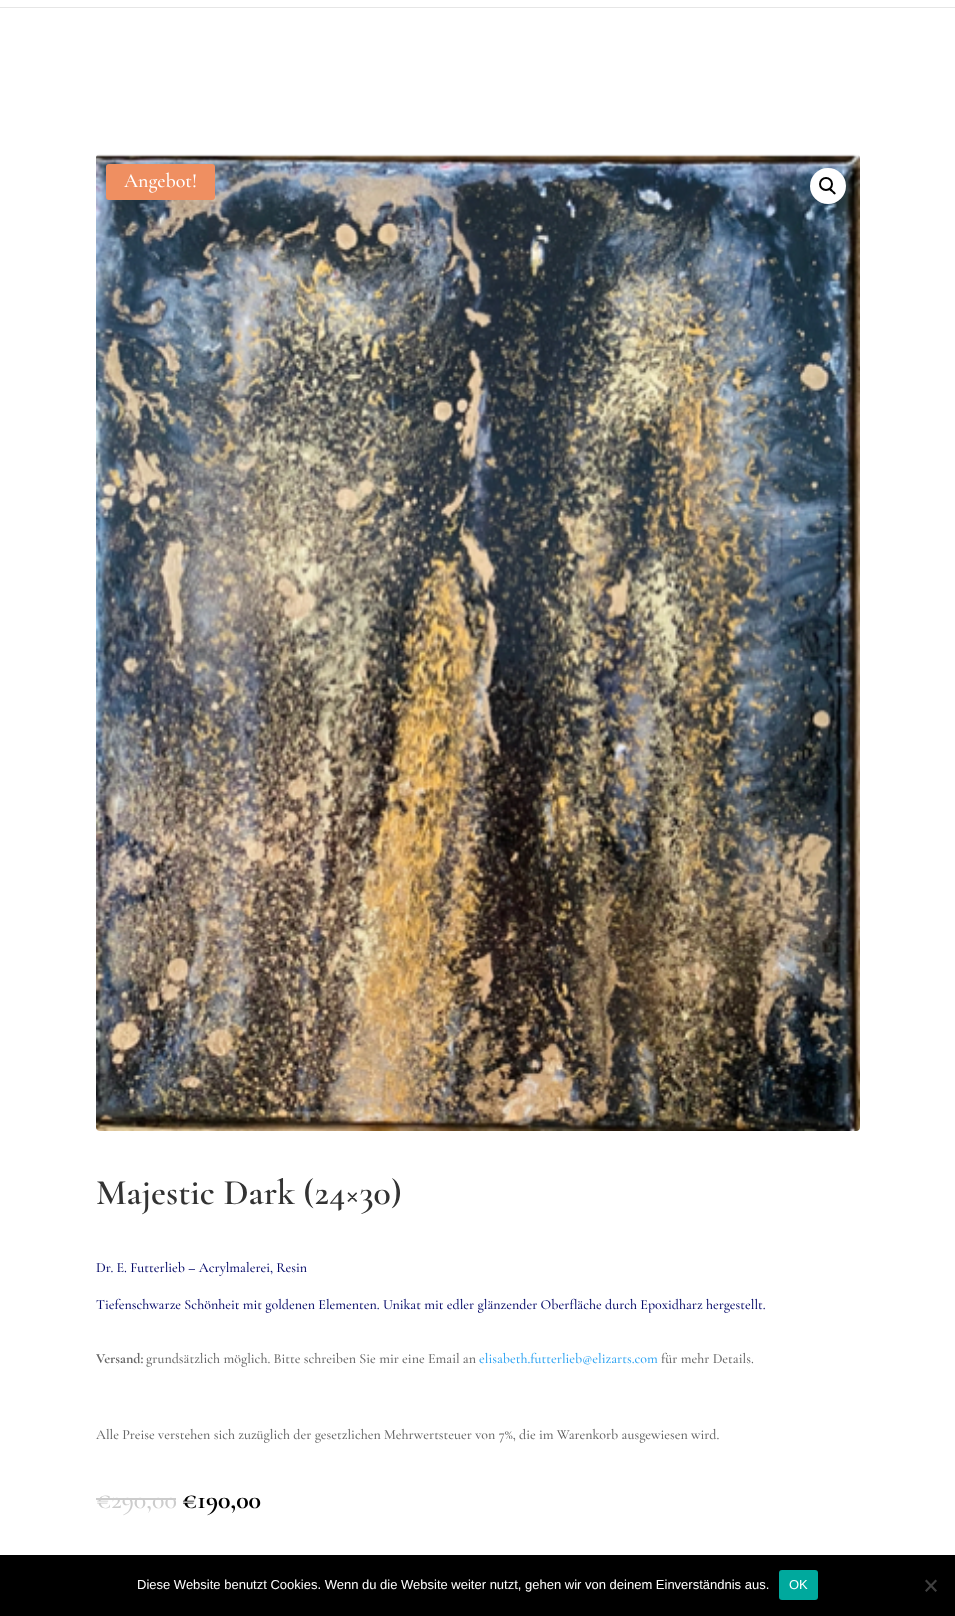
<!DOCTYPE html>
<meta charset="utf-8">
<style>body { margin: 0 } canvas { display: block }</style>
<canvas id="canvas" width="955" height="1616"></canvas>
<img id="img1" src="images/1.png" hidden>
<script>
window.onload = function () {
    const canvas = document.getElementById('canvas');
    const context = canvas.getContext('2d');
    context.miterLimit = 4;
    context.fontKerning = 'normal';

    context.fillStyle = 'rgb(255, 255, 255)';
    context.fillRect(0, 0, 955, 1616);
    context.fillStyle = 'rgb(230, 230, 230)';
    context.fillRect(0, 7, 955, 1);
    context.drawImage(document.getElementById('img1'), 96, 154, 764, 977);
    context.fillStyle = 'rgb(255, 255, 255)';
    context.beginPath();
    context.arc(828, 186, 18, 0, 2 * Math.PI);
    context.fill();
    context.beginPath();
    context.arc(826, 184, 6, 0, 2 * Math.PI);
    context.strokeStyle = 'rgb(0, 0, 0)';
    context.lineWidth = 2;
    context.stroke();
    context.fillStyle = 'rgb(0, 0, 0)';
    context.beginPath();
    context.moveTo(829.5, 188.5);
    context.bezierCurveTo(831, 187.5, 832.5, 190, 833, 190.5);
    context.bezierCurveTo(834, 191.5, 836.5, 193, 835.5, 194);
    context.bezierCurveTo(834, 195.5, 832.5, 192.5, 832, 192);
    context.bezierCurveTo(831, 191.5, 828.5, 190, 829.5, 188.5);
    context.closePath();
    context.fill();
    context.fillStyle = 'rgb(239, 143, 97)';
    context.beginPath();
    context.roundRect(106, 164, 109, 36, 3);
    context.fill();
    context.fillStyle = 'rgb(204, 204, 204)';
    context.fillRect(96, 1498, 80, 2);
    context.fillStyle = 'rgb(0, 0, 0)';
    context.fillRect(0, 1555, 955, 61);
    context.fillStyle = 'rgb(0, 169, 157)';
    context.beginPath();
    context.roundRect(779, 1570, 39, 30, 3);
    context.fill();
    context.fillStyle = 'rgb(64, 64, 64)';
    context.beginPath();
    context.moveTo(935.5, 1579.5);
    context.lineTo(937, 1581);
    context.lineTo(926.5, 1592);
    context.lineTo(925, 1590.5);
    context.closePath();
    context.fill();
    context.beginPath();
    context.moveTo(925, 1581);
    context.lineTo(926.5, 1579.5);
    context.lineTo(937, 1590.5);
    context.lineTo(935.5, 1592);
    context.closePath();
    context.fill();
    context.font = '300 20px Cormorant Garamond';
    context.fillStyle = 'rgb(255, 255, 255)';
    context.fillText('Angebot!', 124, 187);
    context.font = '600 36px Cormorant Garamond';
    context.fillStyle = 'rgb(51, 51, 51)';
    context.fillText('Majestic Dark (24×30)', 96, 1204);
    context.font = '300 14px Cormorant Garamond';
    context.fillStyle = 'rgb(0, 6, 102)';
    context.fillText('Dr. E. Futterlieb – Acrylmalerei, Resin', 96, 1272);
    context.fillText('Tiefenschwarze Schönheit mit goldenen Elementen. Unikat mit edler glänzender Oberfläche durch Epoxidharz hergestellt.', 96, 1309);
    context.font = '300 14px "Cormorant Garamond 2"';
    context.fillStyle = 'rgb(102, 102, 102)';
    context.fillText('Versand:', 96, 1363);
    context.font = '300 14px Cormorant Garamond';
    context.fillText('grundsätzlich möglich. Bitte schreiben Sie mir eine Email an', 146, 1363);
    context.fillStyle = 'rgb(46, 163, 242)';
    context.fillText('elisabeth.futterlieb@elizarts.com', 479, 1363);
    context.fillStyle = 'rgb(102, 102, 102)';
    context.fillText('für mehr Details.', 661, 1363);
    context.fillText('Alle Preise verstehen sich zuzüglich der gesetzlichen Mehrwertsteuer von 7%, die im Warenkorb ausgewiesen wird.', 96, 1439);
    context.font = '300 26px Cormorant Garamond';
    context.fillStyle = 'rgb(204, 204, 204)';
    context.fillText('€290,00', 96, 1508);
    context.font = '300 26px "Cormorant Garamond 2"';
    context.fillStyle = 'rgb(0, 0, 0)';
    context.fillText('€190,00', 182, 1508);
    context.font = '13px Liberation Sans';
    context.fillStyle = 'rgb(255, 255, 255)';
    context.fillText('Diese Website benutzt Cookies. Wenn du die Website weiter nutzt, gehen wir von deinem Einverständnis aus.', 137, 1589);
    context.fillText('OK', 789, 1589);
};
</script>
